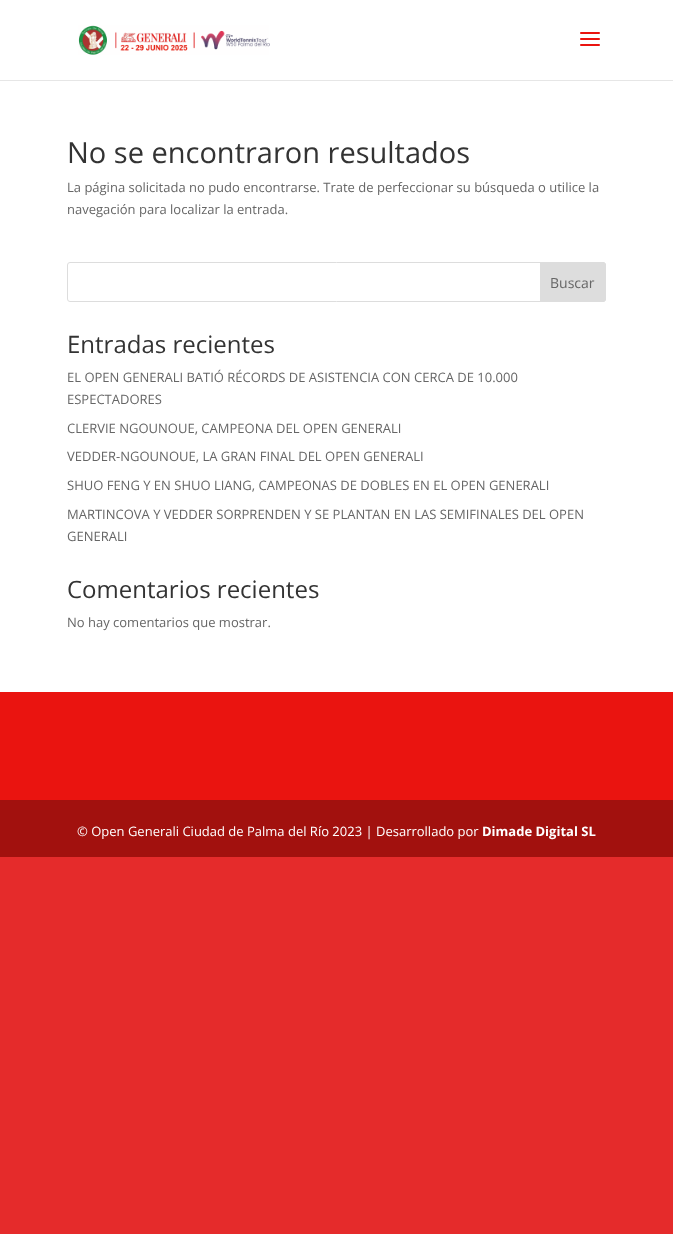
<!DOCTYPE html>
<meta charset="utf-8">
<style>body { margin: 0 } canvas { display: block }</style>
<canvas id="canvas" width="673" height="1234"></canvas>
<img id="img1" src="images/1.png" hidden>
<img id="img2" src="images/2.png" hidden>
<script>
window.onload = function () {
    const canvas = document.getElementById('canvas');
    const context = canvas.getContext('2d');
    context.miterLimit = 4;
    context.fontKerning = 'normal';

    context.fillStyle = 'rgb(229, 43, 43)';
    context.fillRect(0, 0, 673, 1234);
    context.fillStyle = 'rgb(230, 230, 230)';
    context.fillRect(0, 80, 673, 1);
    context.fillStyle = 'rgb(255, 255, 255)';
    context.fillRect(0, 0, 673, 80);
    context.drawImage(document.getElementById('img1'), 78, 25, 192, 30);
    context.drawImage(document.getElementById('img2'), 580, 32, 20, 14);
    context.fillRect(0, 81, 673, 611);
    context.beginPath();
    context.roundRect(67.5, 262.5, 538, 39, 2.5);
    context.strokeStyle = 'rgb(221, 221, 221)';
    context.stroke();
    context.fillStyle = 'rgb(221, 221, 221)';
    context.beginPath();
    context.roundRect(540.5, 262.5, 65, 39, [0, 2.5, 2.5, 0]);
    context.fill();
    context.stroke();
    context.fillStyle = 'rgb(234, 20, 16)';
    context.fillRect(0, 692, 673, 108);
    context.fillStyle = 'rgb(162, 17, 14)';
    context.fillRect(0, 800, 673, 57);
    context.font = '29px Open Sans';
    context.fillStyle = 'rgb(51, 51, 51)';
    context.fillText('No se encontraron resultados', 67, 163);
    context.font = '13px Open Sans';
    context.fillStyle = 'rgb(102, 102, 102)';
    context.fillText('La página solicitada no pudo encontrarse. Trate de perfeccionar su búsqueda o utilice la', 67, 192);
    context.fillText('navegación para localizar la entrada.', 67, 214);
    context.font = '14px Open Sans';
    context.fillText('Buscar', 550, 288);
    context.font = '24px Open Sans';
    context.fillStyle = 'rgb(51, 51, 51)';
    context.fillText('Entradas recientes', 67, 353);
    context.font = '13px Open Sans';
    context.fillStyle = 'rgb(102, 102, 102)';
    context.fillText('EL OPEN GENERALI BATIÓ RÉCORDS DE ASISTENCIA CON CERCA DE 10.000', 67, 382);
    context.fillText('ESPECTADORES', 67, 404);
    context.fillText('CLERVIE NGOUNOUE, CAMPEONA DEL OPEN GENERALI', 67, 433);
    context.fillText('VEDDER-NGOUNOUE, LA GRAN FINAL DEL OPEN GENERALI', 67, 461);
    context.fillText('SHUO FENG Y EN SHUO LIANG, CAMPEONAS DE DOBLES EN EL OPEN GENERALI', 67, 490);
    context.fillText('MARTINCOVA Y VEDDER SORPRENDEN Y SE PLANTAN EN LAS SEMIFINALES DEL OPEN', 67, 519);
    context.fillText('GENERALI', 67, 541);
    context.font = '24px Open Sans';
    context.fillStyle = 'rgb(51, 51, 51)';
    context.fillText('Comentarios recientes', 67, 598);
    context.font = '13px Open Sans';
    context.fillStyle = 'rgb(102, 102, 102)';
    context.fillText('No hay comentarios que mostrar.', 67, 627);
    context.fillStyle = 'rgb(255, 255, 255)';
    context.fillText('© Open Generali Ciudad de Palma del Río 2023 | Desarrollado por', 77, 836);
    context.font = 'bold 13px Open Sans';
    context.fillText('Dimade Digital SL', 482, 836);
};
</script>
